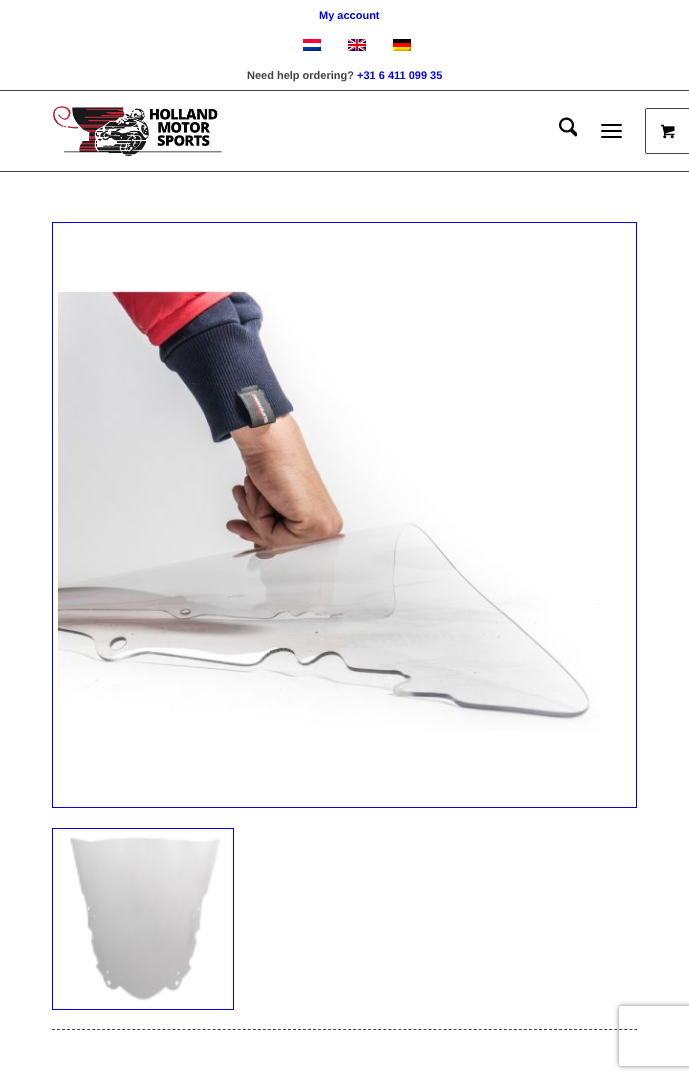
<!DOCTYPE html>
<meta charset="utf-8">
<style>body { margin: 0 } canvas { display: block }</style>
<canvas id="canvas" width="689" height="1080"></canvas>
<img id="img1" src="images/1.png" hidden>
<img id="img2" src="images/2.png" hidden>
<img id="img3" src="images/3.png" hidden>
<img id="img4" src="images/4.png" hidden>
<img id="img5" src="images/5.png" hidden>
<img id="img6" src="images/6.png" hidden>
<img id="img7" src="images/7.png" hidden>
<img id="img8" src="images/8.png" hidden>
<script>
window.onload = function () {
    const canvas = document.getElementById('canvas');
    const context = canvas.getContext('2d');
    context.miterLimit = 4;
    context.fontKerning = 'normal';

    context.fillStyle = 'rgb(255, 255, 255)';
    context.fillRect(0, 0, 689, 1080);
    context.drawImage(document.getElementById('img1'), 303, 39, 18, 12);
    context.drawImage(document.getElementById('img2'), 348, 39, 18, 12);
    context.drawImage(document.getElementById('img3'), 393, 39, 18, 12);
    context.fillStyle = 'rgb(68, 68, 68)';
    context.fillRect(0, 90, 689, 1);
    context.fillRect(0, 171, 689, 1);
    context.drawImage(document.getElementById('img4'), 53, 106, 169, 50);
    context.drawImage(document.getElementById('img5'), 559, 117, 18, 20);
    context.fillStyle = 'rgb(0, 0, 0)';
    context.beginPath();
    context.roundRect(601, 130, 21, 2, 1);
    context.fill();
    context.beginPath();
    context.roundRect(601, 124, 21, 2, 1);
    context.fill();
    context.beginPath();
    context.roundRect(601, 136, 21, 2, 1);
    context.fill();
    context.beginPath();
    context.roundRect(645.5, 108.5, 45, 45, 1.5);
    context.strokeStyle = 'rgb(68, 68, 68)';
    context.stroke();
    context.drawImage(document.getElementById('img6'), 661, 124, 14, 15);
    context.strokeStyle = 'rgb(0, 0, 238)';
    context.strokeRect(52.5, 222.5, 584, 585);
    context.drawImage(document.getElementById('img7'), 58, 289, 542, 442);
    context.strokeRect(52.5, 828.5, 181, 181);
    context.drawImage(document.getElementById('img8'), 70, 837, 151, 164);
    context.beginPath();
    context.moveTo(52, 1029.5);
    context.lineTo(637, 1029.5);
    context.strokeStyle = 'rgb(68, 68, 68)';
    context.setLineDash([3, 2.02]);
    context.stroke();
    context.save();
    context.beginPath();
    context.moveTo(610, 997);
    context.lineTo(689, 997);
    context.lineTo(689, 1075);
    context.lineTo(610, 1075);
    context.closePath();
    context.moveTo(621, 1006);
    context.lineTo(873, 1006);
    context.bezierCurveTo(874, 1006, 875, 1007, 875, 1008);
    context.lineTo(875, 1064);
    context.bezierCurveTo(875, 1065, 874, 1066, 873, 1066);
    context.lineTo(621, 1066);
    context.bezierCurveTo(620, 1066, 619, 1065, 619, 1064);
    context.lineTo(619, 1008);
    context.bezierCurveTo(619, 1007, 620, 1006, 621, 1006);
    context.closePath();
    context.clip('evenodd');
    context.fillStyle = 'rgb(128, 128, 128)';
    context.filter = 'blur(2.5px)';
    context.beginPath();
    context.roundRect(619, 1006, 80, 60, 2);
    context.fill();
    context.filter = 'none';
    context.restore();
    context.font = 'bold 11px Liberation Sans';
    context.fillStyle = 'rgb(0, 0, 238)';
    context.fillText('My account', 319, 19);
    context.fillStyle = 'rgb(68, 68, 68)';
    context.fillText('Need help ordering?', 247, 79);
    context.fillStyle = 'rgb(0, 0, 238)';
    context.fillText('+31 6 411 099 35', 357, 79);
};
</script>
